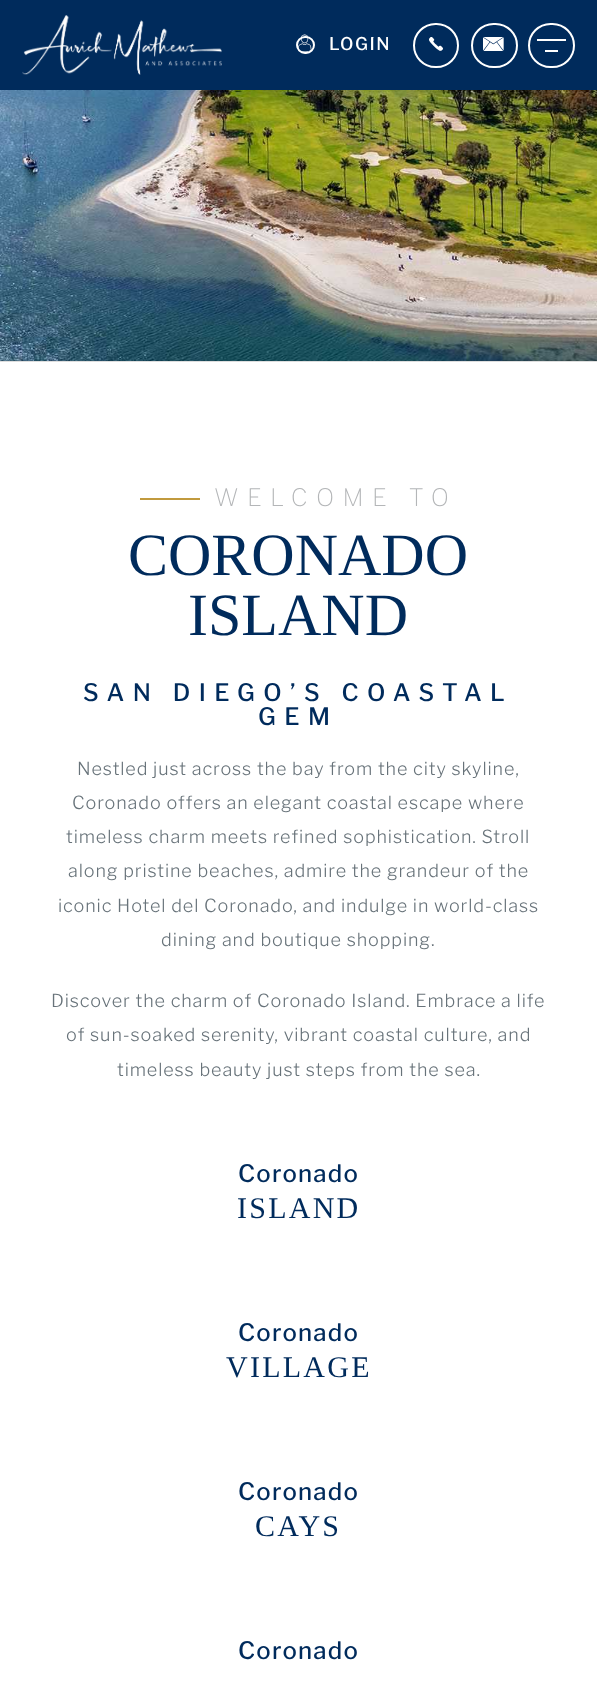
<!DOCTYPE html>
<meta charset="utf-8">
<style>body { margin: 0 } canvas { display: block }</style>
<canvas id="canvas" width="597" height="1683"></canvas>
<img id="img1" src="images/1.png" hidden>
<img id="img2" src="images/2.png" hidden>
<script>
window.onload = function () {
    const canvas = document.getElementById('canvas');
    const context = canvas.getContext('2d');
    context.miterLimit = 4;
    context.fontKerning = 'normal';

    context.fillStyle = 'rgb(255, 255, 255)';
    context.fillRect(0, 0, 597, 1683);
    context.fillStyle = 'rgb(0, 43, 92)';
    context.fillRect(0, 0, 597, 90);
    context.drawImage(document.getElementById('img1'), 22, 15, 200, 60);
    context.beginPath();
    context.roundRect(297, 37, 17, 16, 8);
    context.strokeStyle = 'rgb(255, 255, 255)';
    context.lineWidth = 2;
    context.stroke();
    context.beginPath();
    context.roundRect(414, 24, 44, 43, 21.5);
    context.stroke();
    context.beginPath();
    context.roundRect(472, 24, 45, 43, 21.5);
    context.stroke();
    context.beginPath();
    context.roundRect(529, 24, 45, 43, 21.5);
    context.stroke();
    context.fillStyle = 'rgb(255, 255, 255)';
    context.fillRect(537, 39, 29, 2);
    context.fillRect(545, 50, 13, 2);
    context.fillStyle = 'rgb(222, 222, 222)';
    context.fillRect(0, 361, 597, 1);
    context.drawImage(document.getElementById('img2'), 0, 90, 597, 271);
    context.fillStyle = 'rgb(193, 154, 61)';
    context.fillRect(140, 498, 60, 2);
    context.letterSpacing = '1.5px';
    context.font = '17.5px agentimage';
    context.fillStyle = 'rgb(255, 255, 255)';
    context.fillText('򰈤', 298, 51);
    context.font = '500 17.5px Libre Franklin';
    context.fillText('LOGIN', 329, 50);
    context.letterSpacing = '0px';
    context.font = '14px agentimage';
    context.fillText('򰁩', 429, 50);
    context.fillText('򰌘', 483, 50);
    context.letterSpacing = '8.4px';
    context.font = '100 24px Libre Franklin';
    context.fillStyle = 'rgb(180, 182, 184)';
    context.fillText('WELCOME TO', 214, 506);
    context.letterSpacing = '0px';
    context.font = '60px Liberation Serif';
    context.fillStyle = 'rgb(0, 43, 92)';
    context.fillText('CORONADO', 128, 575);
    context.fillText('ISLAND', 188, 635);
    context.letterSpacing = '8.4px';
    context.font = '500 24px Libre Franklin';
    context.fillText('SAN DIEGO’S COASTAL', 83, 701);
    context.fillText('GEM', 258, 725);
    context.letterSpacing = '0.9px';
    context.font = '300 18px Libre Franklin';
    context.fillStyle = 'rgb(104, 115, 122)';
    context.fillText('Nestled just across the bay from the city skyline,', 77, 775);
    context.fillText('Coronado offers an elegant coastal escape where', 72, 809);
    context.fillText('timeless charm meets refined sophistication. Stroll', 66, 843);
    context.fillText('along pristine beaches, admire the grandeur of the', 68, 877);
    context.fillText('iconic Hotel del Coronado, and indulge in world-class', 58, 912);
    context.fillText('dining and boutique shopping.', 161, 946);
    context.fillText('Discover the charm of Coronado Island. Embrace a life', 51, 1007);
    context.fillText('of sun-soaked serenity, vibrant coastal culture, and', 66, 1041);
    context.fillText('timeless beauty just steps from the sea.', 117, 1076);
    context.letterSpacing = '1.25px';
    context.font = '500 24px Libre Franklin';
    context.fillStyle = 'rgb(0, 43, 92)';
    context.fillText('Coronado', 238, 1182);
    context.letterSpacing = '2.25px';
    context.font = '30px Liberation Serif';
    context.fillText('ISLAND', 237, 1218);
    context.letterSpacing = '1.25px';
    context.font = '500 24px Libre Franklin';
    context.fillText('Coronado', 238, 1341);
    context.letterSpacing = '2.25px';
    context.font = '30px Liberation Serif';
    context.fillText('VILLAGE', 226, 1377);
    context.letterSpacing = '1.25px';
    context.font = '500 24px Libre Franklin';
    context.fillText('Coronado', 238, 1500);
    context.letterSpacing = '2.25px';
    context.font = '30px Liberation Serif';
    context.fillText('CAYS', 255, 1536);
    context.letterSpacing = '1.25px';
    context.font = '500 24px Libre Franklin';
    context.fillText('Coronado', 238, 1659);
};
</script>
